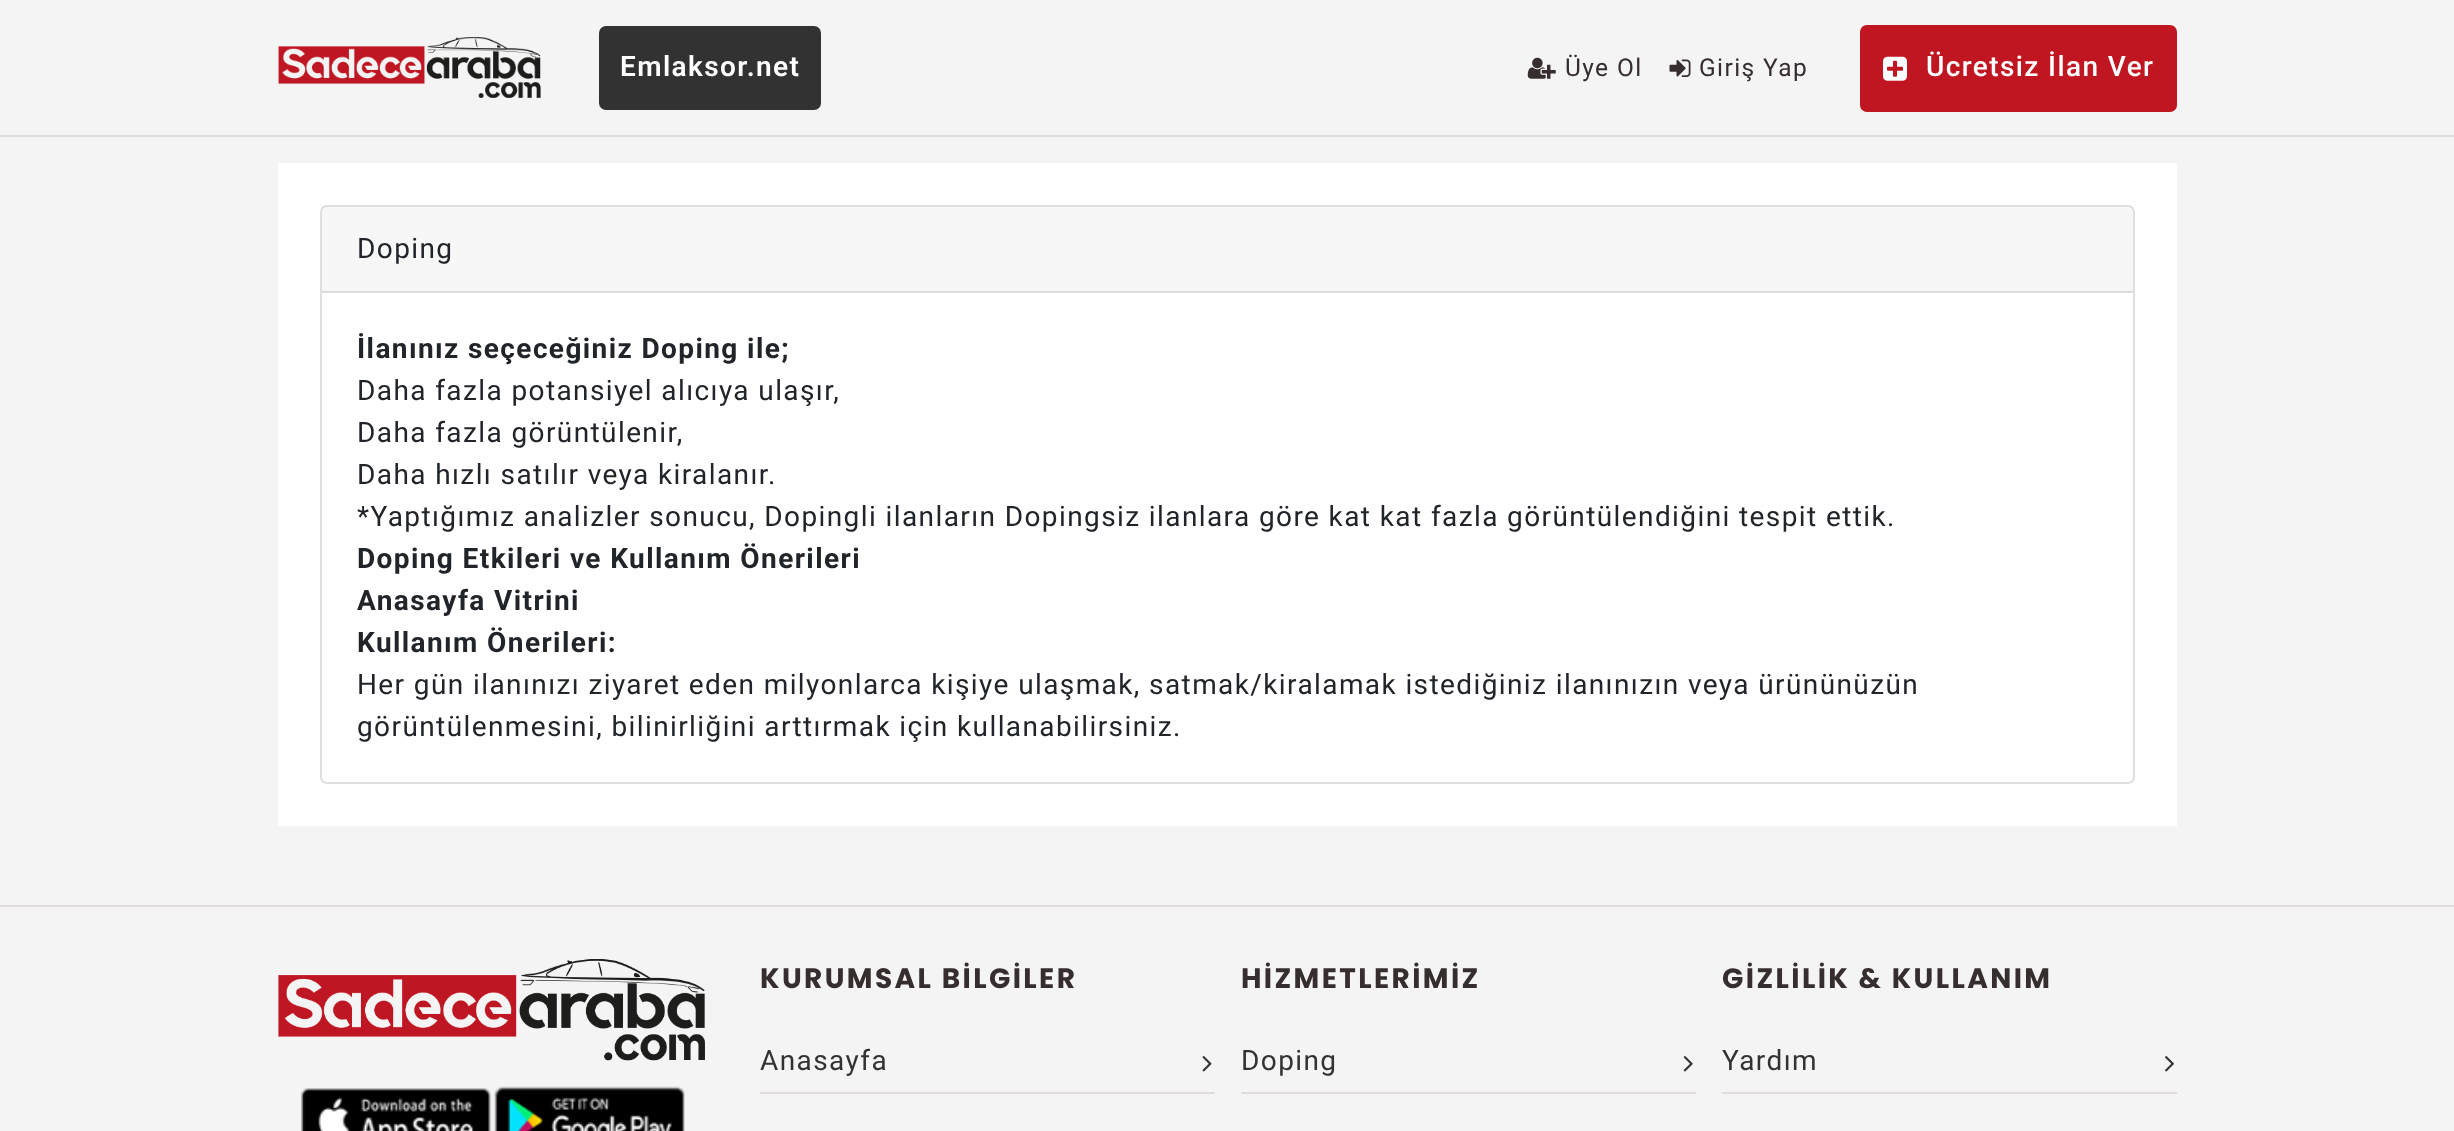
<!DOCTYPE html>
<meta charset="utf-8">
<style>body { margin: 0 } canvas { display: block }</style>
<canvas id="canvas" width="2454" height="1131"></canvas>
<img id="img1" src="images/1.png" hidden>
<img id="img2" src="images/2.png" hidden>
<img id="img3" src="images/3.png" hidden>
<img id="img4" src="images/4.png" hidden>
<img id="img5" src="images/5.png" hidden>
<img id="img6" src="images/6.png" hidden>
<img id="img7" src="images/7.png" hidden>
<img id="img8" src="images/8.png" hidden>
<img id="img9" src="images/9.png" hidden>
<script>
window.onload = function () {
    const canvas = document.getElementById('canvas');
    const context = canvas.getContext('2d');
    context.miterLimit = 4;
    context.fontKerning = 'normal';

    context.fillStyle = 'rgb(244, 244, 244)';
    context.fillRect(0, 0, 2454, 1131);
    context.fillStyle = 'rgb(227, 220, 220)';
    context.fillRect(0, 135, 2454, 2);
    context.drawImage(document.getElementById('img1'), 278, 37, 263, 61);
    context.fillStyle = 'rgb(50, 50, 50)';
    context.beginPath();
    context.roundRect(599, 26, 222, 84, 7);
    context.fill();
    context.drawImage(document.getElementById('img2'), 1527, 57, 29, 22);
    context.drawImage(document.getElementById('img3'), 1669, 59, 22, 18);
    context.fillStyle = 'rgb(192, 22, 33)';
    context.beginPath();
    context.roundRect(1860, 25, 317, 87, 7);
    context.fill();
    context.drawImage(document.getElementById('img4'), 1883, 56, 24, 25);
    context.fillStyle = 'rgb(255, 255, 255)';
    context.fillRect(278, 163, 1899, 663);
    context.beginPath();
    context.roundRect(321, 206, 1813, 577, 6);
    context.strokeStyle = 'rgb(223, 223, 223)';
    context.lineWidth = 2;
    context.stroke();
    context.fillStyle = 'rgba(0, 0, 0, 0.03)';
    context.fillRect(322, 207, 1811, 85);
    context.fillStyle = 'rgba(0, 0, 0, 0.12)';
    context.fillRect(322, 291, 1811, 2);
    context.fillStyle = 'rgb(227, 220, 220)';
    context.fillRect(0, 905, 2454, 2);
    context.drawImage(document.getElementById('img5'), 278, 959, 427, 102);
    context.drawImage(document.getElementById('img6'), 301, 1086, 384, 45);
    context.fillRect(760, 1092, 455, 2);
    context.drawImage(document.getElementById('img7'), 1202, 1056, 10, 16);
    context.fillRect(1241, 1092, 455, 2);
    context.drawImage(document.getElementById('img8'), 1683, 1056, 10, 16);
    context.fillRect(1722, 1092, 455, 2);
    context.drawImage(document.getElementById('img9'), 2165, 1056, 9, 16);
    context.letterSpacing = '1.4px';
    context.font = '600 28px Roboto';
    context.fillStyle = 'rgb(255, 255, 255)';
    context.fillText('Emlaksor.net', 620, 76);
    context.font = '24.5px Roboto';
    context.fillStyle = 'rgb(54, 45, 46)';
    context.fillText('Üye Ol', 1565, 76);
    context.fillText('Giriş Yap', 1699, 76);
    context.font = '500 28px Roboto';
    context.fillStyle = 'rgb(255, 255, 255)';
    context.fillText('Ücretsiz İlan Ver', 1926, 76);
    context.font = '28px Roboto';
    context.fillStyle = 'rgb(33, 37, 41)';
    context.fillText('Doping', 357, 258);
    context.font = 'bold 28px Roboto';
    context.fillText('İlanınız seçeceğiniz Doping ile;', 357, 358);
    context.font = '28px Roboto';
    context.fillText('Daha fazla potansiyel alıcıya ulaşır,', 357, 400);
    context.fillText('Daha fazla görüntülenir,', 357, 442);
    context.fillText('Daha hızlı satılır veya kiralanır.', 357, 484);
    context.fillText('*Yaptığımız analizler sonucu, Dopingli ilanların Dopingsiz ilanlara göre kat kat fazla görüntülendiğini tespit ettik.', 357, 526);
    context.font = 'bold 28px Roboto';
    context.fillText('Doping Etkileri ve Kullanım Önerileri', 357, 568);
    context.fillText('Anasayfa Vitrini', 357, 610);
    context.fillText('Kullanım Önerileri:', 357, 652);
    context.font = '28px Roboto';
    context.fillText('Her gün ilanınızı ziyaret eden milyonlarca kişiye ulaşmak, satmak/kiralamak istediğiniz ilanınızın veya ürününüzün', 357, 694);
    context.fillText('görüntülenmesini, bilinirliğini arttırmak için kullanabilirsiniz.', 357, 736);
    context.letterSpacing = '2.4px';
    context.font = 'bold 28px Poppins';
    context.fillStyle = 'rgb(54, 45, 46)';
    context.fillText('KURUMSAL BİLGİLER', 760, 988);
    context.letterSpacing = '1.4px';
    context.font = '28px Roboto';
    context.fillStyle = 'rgb(51, 51, 51)';
    context.fillText('Anasayfa', 760, 1070);
    context.letterSpacing = '2.4px';
    context.font = 'bold 28px Poppins';
    context.fillStyle = 'rgb(54, 45, 46)';
    context.fillText('HİZMETLERİMİZ', 1241, 988);
    context.letterSpacing = '1.4px';
    context.font = '28px Roboto';
    context.fillStyle = 'rgb(51, 51, 51)';
    context.fillText('Doping', 1241, 1070);
    context.letterSpacing = '2.4px';
    context.font = 'bold 28px Poppins';
    context.fillStyle = 'rgb(54, 45, 46)';
    context.fillText('GİZLİLİK & KULLANIM', 1722, 988);
    context.letterSpacing = '1.4px';
    context.font = '28px Roboto';
    context.fillStyle = 'rgb(51, 51, 51)';
    context.fillText('Yardım', 1722, 1070);
};
</script>
